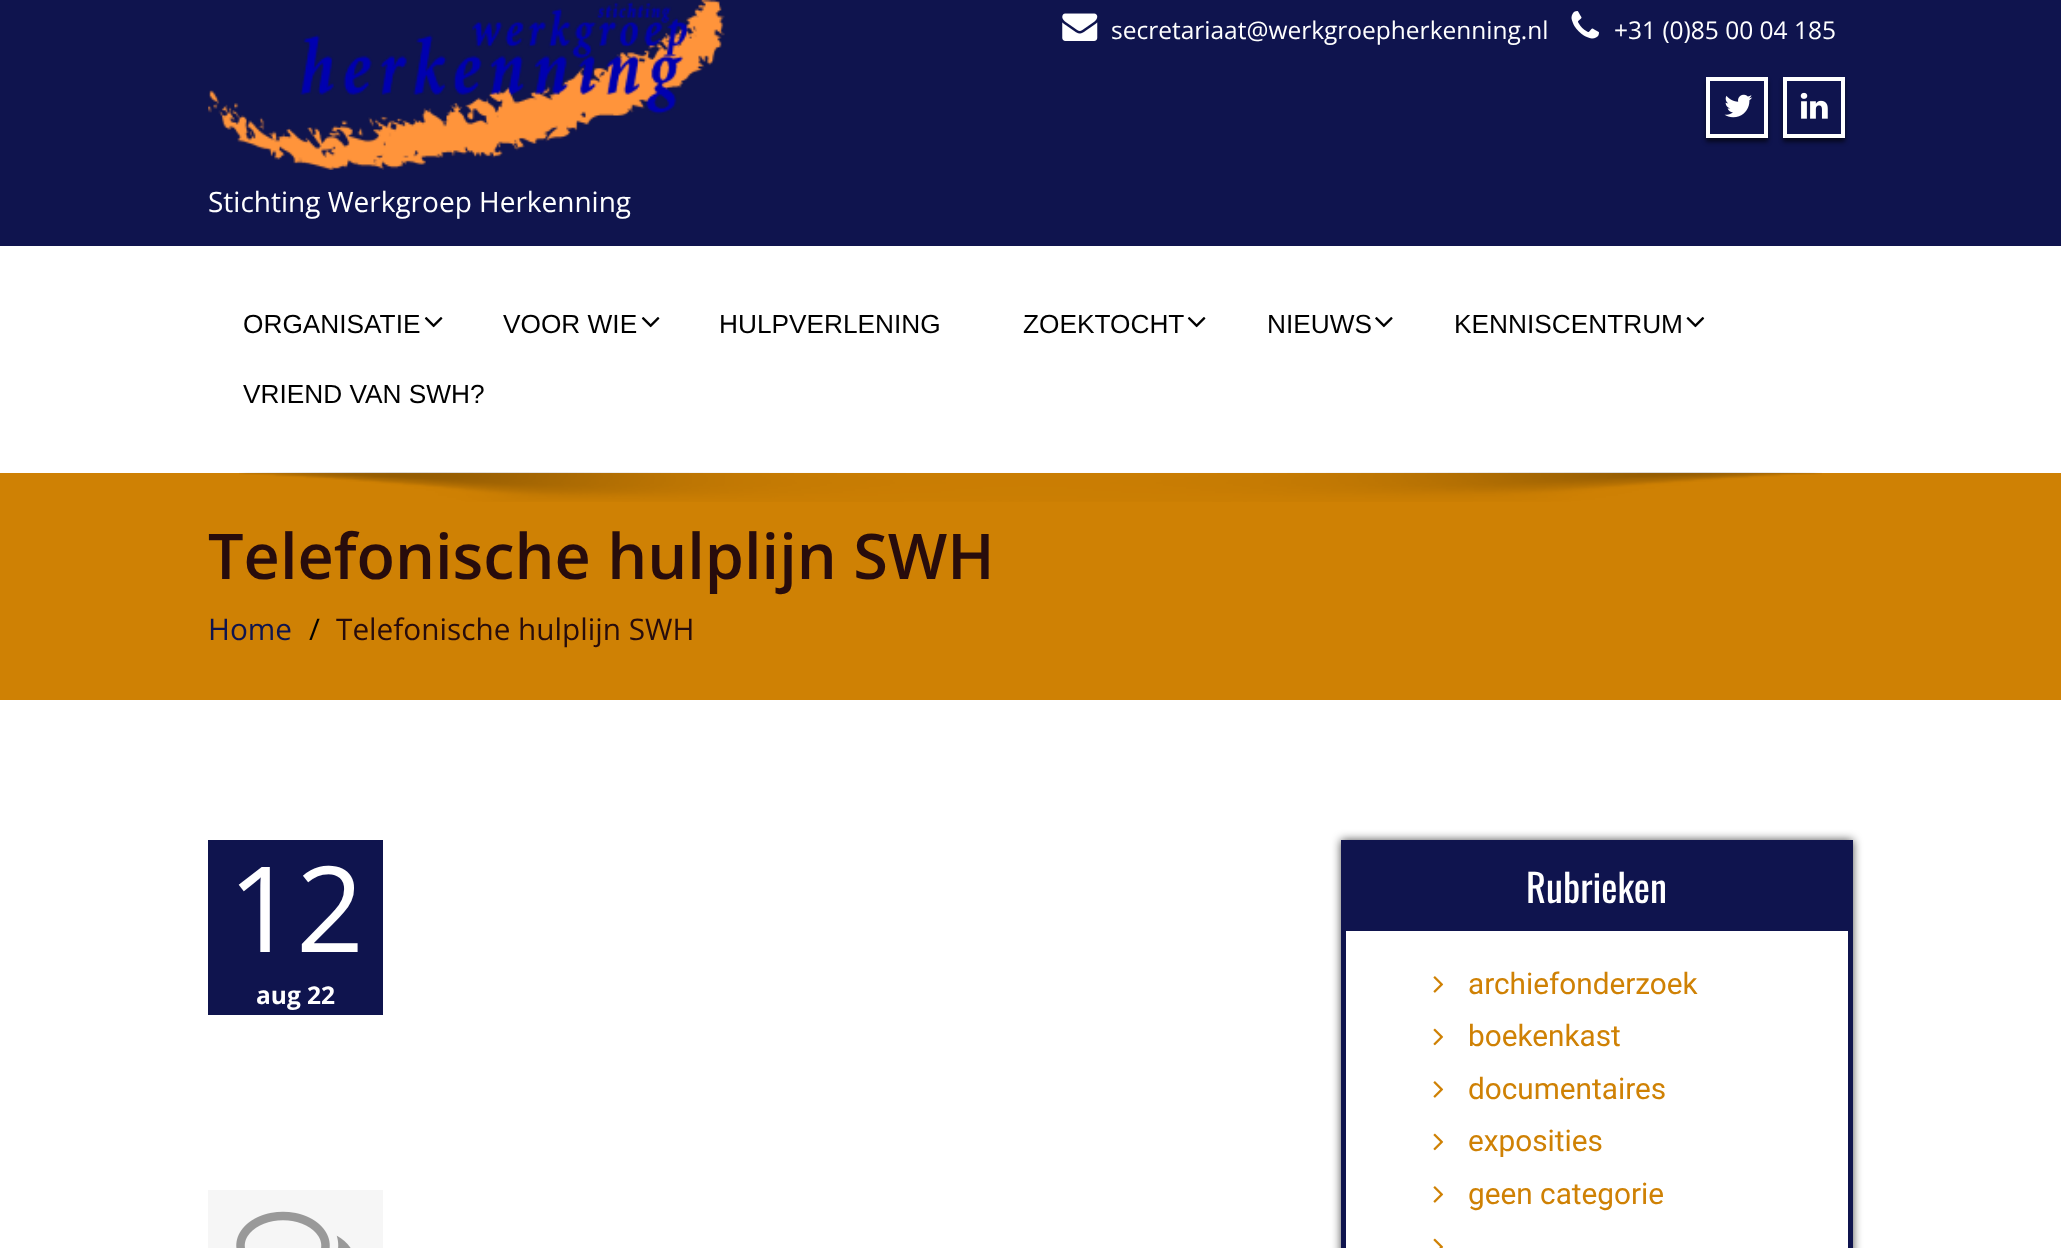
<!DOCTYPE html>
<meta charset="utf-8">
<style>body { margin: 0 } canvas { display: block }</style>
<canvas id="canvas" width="2061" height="1248"></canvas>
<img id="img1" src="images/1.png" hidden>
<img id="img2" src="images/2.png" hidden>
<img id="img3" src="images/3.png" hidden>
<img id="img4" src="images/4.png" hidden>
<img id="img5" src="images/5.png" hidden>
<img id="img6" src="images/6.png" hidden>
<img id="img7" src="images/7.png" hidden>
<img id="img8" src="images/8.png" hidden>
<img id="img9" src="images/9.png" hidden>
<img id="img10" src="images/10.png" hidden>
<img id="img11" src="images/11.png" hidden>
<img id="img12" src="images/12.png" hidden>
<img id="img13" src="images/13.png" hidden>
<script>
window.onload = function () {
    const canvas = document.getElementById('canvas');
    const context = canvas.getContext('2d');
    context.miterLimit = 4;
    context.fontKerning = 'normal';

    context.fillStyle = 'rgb(255, 255, 255)';
    context.fillRect(0, 0, 2061, 1248);
    context.fillStyle = 'rgb(15, 20, 78)';
    context.fillRect(0, 0, 2061, 246);
    context.drawImage(document.getElementById('img1'), 1062, 13, 36, 28);
    context.drawImage(document.getElementById('img2'), 1571, 11, 28, 28);
    context.save();
    context.beginPath();
    context.moveTo(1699, 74);
    context.lineTo(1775, 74);
    context.lineTo(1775, 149);
    context.lineTo(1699, 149);
    context.closePath();
    context.moveTo(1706, 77);
    context.lineTo(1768, 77);
    context.lineTo(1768, 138);
    context.lineTo(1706, 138);
    context.closePath();
    context.clip('evenodd');
    context.fillStyle = 'rgba(0, 0, 0, 0.6)';
    context.filter = 'blur(2px)';
    context.beginPath();
    context.rect(1706, 81, 62, 61);
    context.fill();
    context.filter = 'none';
    context.restore();
    context.strokeStyle = 'rgb(255, 255, 255)';
    context.lineWidth = 4;
    context.strokeRect(1708, 79, 58, 57);
    context.drawImage(document.getElementById('img3'), 1724, 94, 29, 24);
    context.save();
    context.beginPath();
    context.moveTo(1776, 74);
    context.lineTo(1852, 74);
    context.lineTo(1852, 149);
    context.lineTo(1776, 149);
    context.closePath();
    context.moveTo(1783, 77);
    context.lineTo(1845, 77);
    context.lineTo(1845, 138);
    context.lineTo(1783, 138);
    context.closePath();
    context.clip('evenodd');
    context.fillStyle = 'rgba(0, 0, 0, 0.6)';
    context.filter = 'blur(2px)';
    context.beginPath();
    context.rect(1783, 81, 62, 61);
    context.fill();
    context.filter = 'none';
    context.restore();
    context.strokeRect(1785, 79, 58, 57);
    context.drawImage(document.getElementById('img4'), 1800, 92, 28, 27);
    context.drawImage(document.getElementById('img5'), 208, 0, 517, 170);
    context.drawImage(document.getElementById('img6'), 424, 317, 19, 11);
    context.drawImage(document.getElementById('img6'), 641, 317, 19, 11);
    context.drawImage(document.getElementById('img6'), 1187, 317, 19, 11);
    context.drawImage(document.getElementById('img7'), 1375, 317, 18, 11);
    context.drawImage(document.getElementById('img8'), 1686, 317, 19, 11);
    context.fillStyle = 'rgb(207, 129, 4)';
    context.fillRect(0, 473, 2061, 227);
    context.drawImage(document.getElementById('img9'), 239, 472, 1583, 30);
    context.fillStyle = 'rgb(15, 20, 78)';
    context.fillRect(208, 840, 175, 175);
    context.fillStyle = 'rgb(246, 246, 246)';
    context.fillRect(208, 1190, 175, 58);
    context.drawImage(document.getElementById('img10'), 236, 1211, 115, 37);
    context.save();
    context.beginPath();
    context.moveTo(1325, 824);
    context.lineTo(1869, 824);
    context.lineTo(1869, 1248);
    context.lineTo(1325, 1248);
    context.closePath();
    context.moveTo(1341, 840);
    context.lineTo(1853, 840);
    context.lineTo(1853, 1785);
    context.lineTo(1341, 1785);
    context.closePath();
    context.clip('evenodd');
    context.fillStyle = 'rgba(0, 0, 0, 0.7)';
    context.filter = 'blur(5px)';
    context.beginPath();
    context.rect(1341, 840, 512, 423);
    context.fill();
    context.filter = 'none';
    context.restore();
    context.fillStyle = 'rgb(15, 20, 78)';
    context.fillRect(1848, 840, 5, 408);
    context.fillRect(1341, 840, 5, 408);
    context.fillRect(1346, 840, 502, 91);
    context.drawImage(document.getElementById('img11'), 1433, 976, 11, 17);
    context.drawImage(document.getElementById('img12'), 1433, 1028, 11, 18);
    context.drawImage(document.getElementById('img11'), 1433, 1081, 11, 17);
    context.drawImage(document.getElementById('img12'), 1433, 1133, 11, 18);
    context.drawImage(document.getElementById('img11'), 1433, 1186, 11, 17);
    context.drawImage(document.getElementById('img13'), 1433, 1238, 11, 10);
    context.font = '24.5px Open Sans';
    context.fillStyle = 'rgb(255, 255, 255)';
    context.fillText('secretariaat@werkgroepherkenning.nl', 1111, 39);
    context.fillText('+31 (0)85 00 04 185', 1614, 39);
    context.font = '28px Open Sans';
    context.fillText('Stichting Werkgroep Herkenning', 208, 212);
    context.font = '26.25px Liberation Sans';
    context.fillStyle = 'rgb(0, 0, 0)';
    context.fillText('ORGANISATIE', 243, 333);
    context.fillText('VOOR WIE', 503, 333);
    context.fillText('HULPVERLENING', 719, 333);
    context.fillText('ZOEKTOCHT', 1023, 333);
    context.fillText('NIEUWS', 1267, 333);
    context.fillText('KENNISCENTRUM', 1454, 333);
    context.fillText('VRIEND VAN SWH?', 243, 403);
    context.font = '600 63px Open Sans';
    context.fillStyle = 'rgb(40, 12, 12)';
    context.fillText('Telefonische hulplijn SWH', 208, 579);
    context.font = '29.75px Open Sans';
    context.fillStyle = 'rgb(15, 20, 78)';
    context.fillText('Home', 208, 640);
    context.fillStyle = 'rgb(0, 0, 0)';
    context.fillText('/', 309, 640);
    context.fillStyle = 'rgb(40, 12, 12)';
    context.fillText('Telefonische hulplijn SWH', 336, 640);
    context.font = '119px Open Sans';
    context.fillStyle = 'rgb(255, 255, 255)';
    context.fillText('12', 228, 952);
    context.font = 'bold 24.5px Open Sans';
    context.fillText('aug 22', 256, 1004);
    context.font = '38.5px Oswald';
    context.fillText('Rubrieken', 1526, 903);
    context.font = '29.75px Roboto';
    context.fillStyle = 'rgb(207, 129, 4)';
    context.fillText('archiefonderzoek', 1468, 994);
    context.fillText('boekenkast', 1468, 1046);
    context.fillText('documentaires', 1468, 1099);
    context.fillText('exposities', 1468, 1151);
    context.fillText('geen categorie', 1468, 1204);
};
</script>
